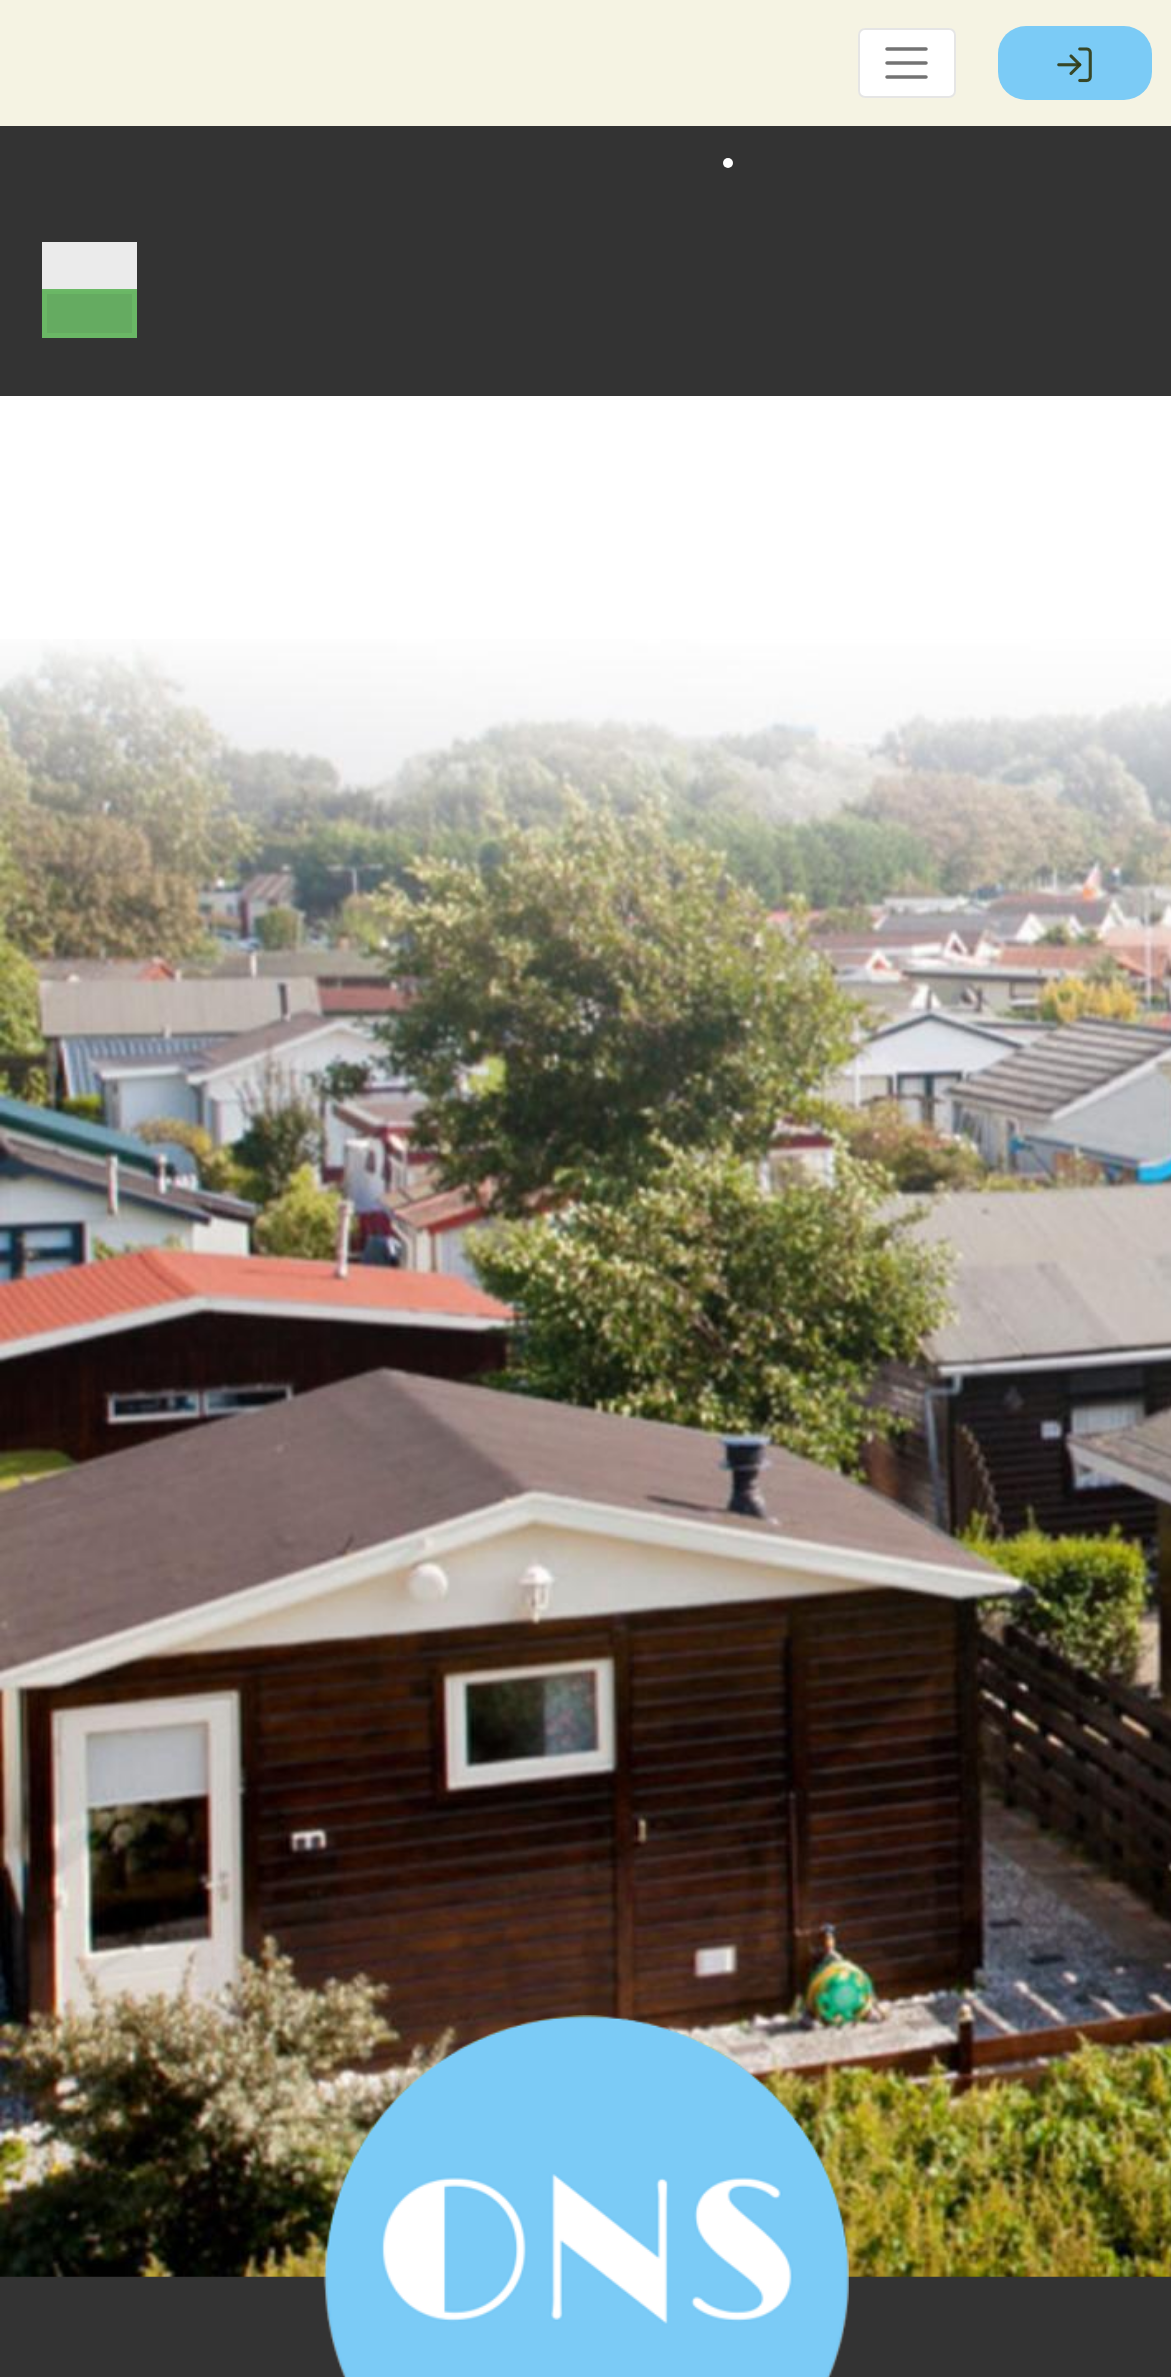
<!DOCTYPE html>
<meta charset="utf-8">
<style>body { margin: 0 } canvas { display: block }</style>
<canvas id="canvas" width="1171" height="2377"></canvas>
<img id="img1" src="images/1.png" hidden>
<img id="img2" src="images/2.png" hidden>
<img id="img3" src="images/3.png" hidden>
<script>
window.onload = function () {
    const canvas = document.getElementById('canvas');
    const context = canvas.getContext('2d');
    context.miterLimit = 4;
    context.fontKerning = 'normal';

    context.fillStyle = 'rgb(255, 255, 255)';
    context.fillRect(0, 0, 1171, 2377);
    context.fillStyle = 'rgb(245, 243, 227)';
    context.fillRect(0, 0, 1171, 126);
    context.fillStyle = 'rgb(255, 255, 255)';
    context.beginPath();
    context.roundRect(858, 28, 98, 70, 7);
    context.fill();
    context.beginPath();
    context.roundRect(859, 29, 96, 68, 6);
    context.strokeStyle = 'rgba(0, 0, 0, 0.1)';
    context.lineWidth = 2;
    context.stroke();
    context.beginPath();
    context.moveTo(887, 49);
    context.lineTo(926, 49);
    context.moveTo(887, 63);
    context.lineTo(926, 63);
    context.moveTo(887, 77);
    context.lineTo(926, 77);
    context.strokeStyle = 'rgb(115, 115, 115)';
    context.lineWidth = 3.5;
    context.lineCap = 'round';
    context.stroke();
    context.fillStyle = 'rgb(123, 203, 246)';
    context.beginPath();
    context.roundRect(998, 26, 154, 74, 28);
    context.fill();
    context.drawImage(document.getElementById('img1'), 1057, 47, 35, 36);
    context.fillStyle = 'rgb(51, 51, 51)';
    context.fillRect(0, 126, 1171, 270);
    context.fillStyle = 'rgb(101, 171, 97)';
    context.fillRect(42, 291, 95, 47);
    context.fillStyle = 'rgb(255, 255, 255)';
    context.beginPath();
    context.arc(728, 163, 5, 0, 2 * Math.PI);
    context.fill();
    context.fillStyle = 'rgb(235, 235, 235)';
    context.fillRect(42, 242, 95, 47);
    context.fillStyle = 'rgb(119, 189, 115)';
    context.fillRect(42, 289, 95, 2);
    context.strokeStyle = 'rgba(106, 184, 102, 0.9)';
    context.lineWidth = 5;
    context.strokeRect(44.5, 291.5, 90, 44);
    context.fillStyle = 'rgb(51, 51, 51)';
    context.fillRect(0, 2276, 1171, 101);
    context.drawImage(document.getElementById('img2'), 0, 639, 1171, 1638);
    context.drawImage(document.getElementById('img3'), 323, 2015, 526, 362);
};
</script>
